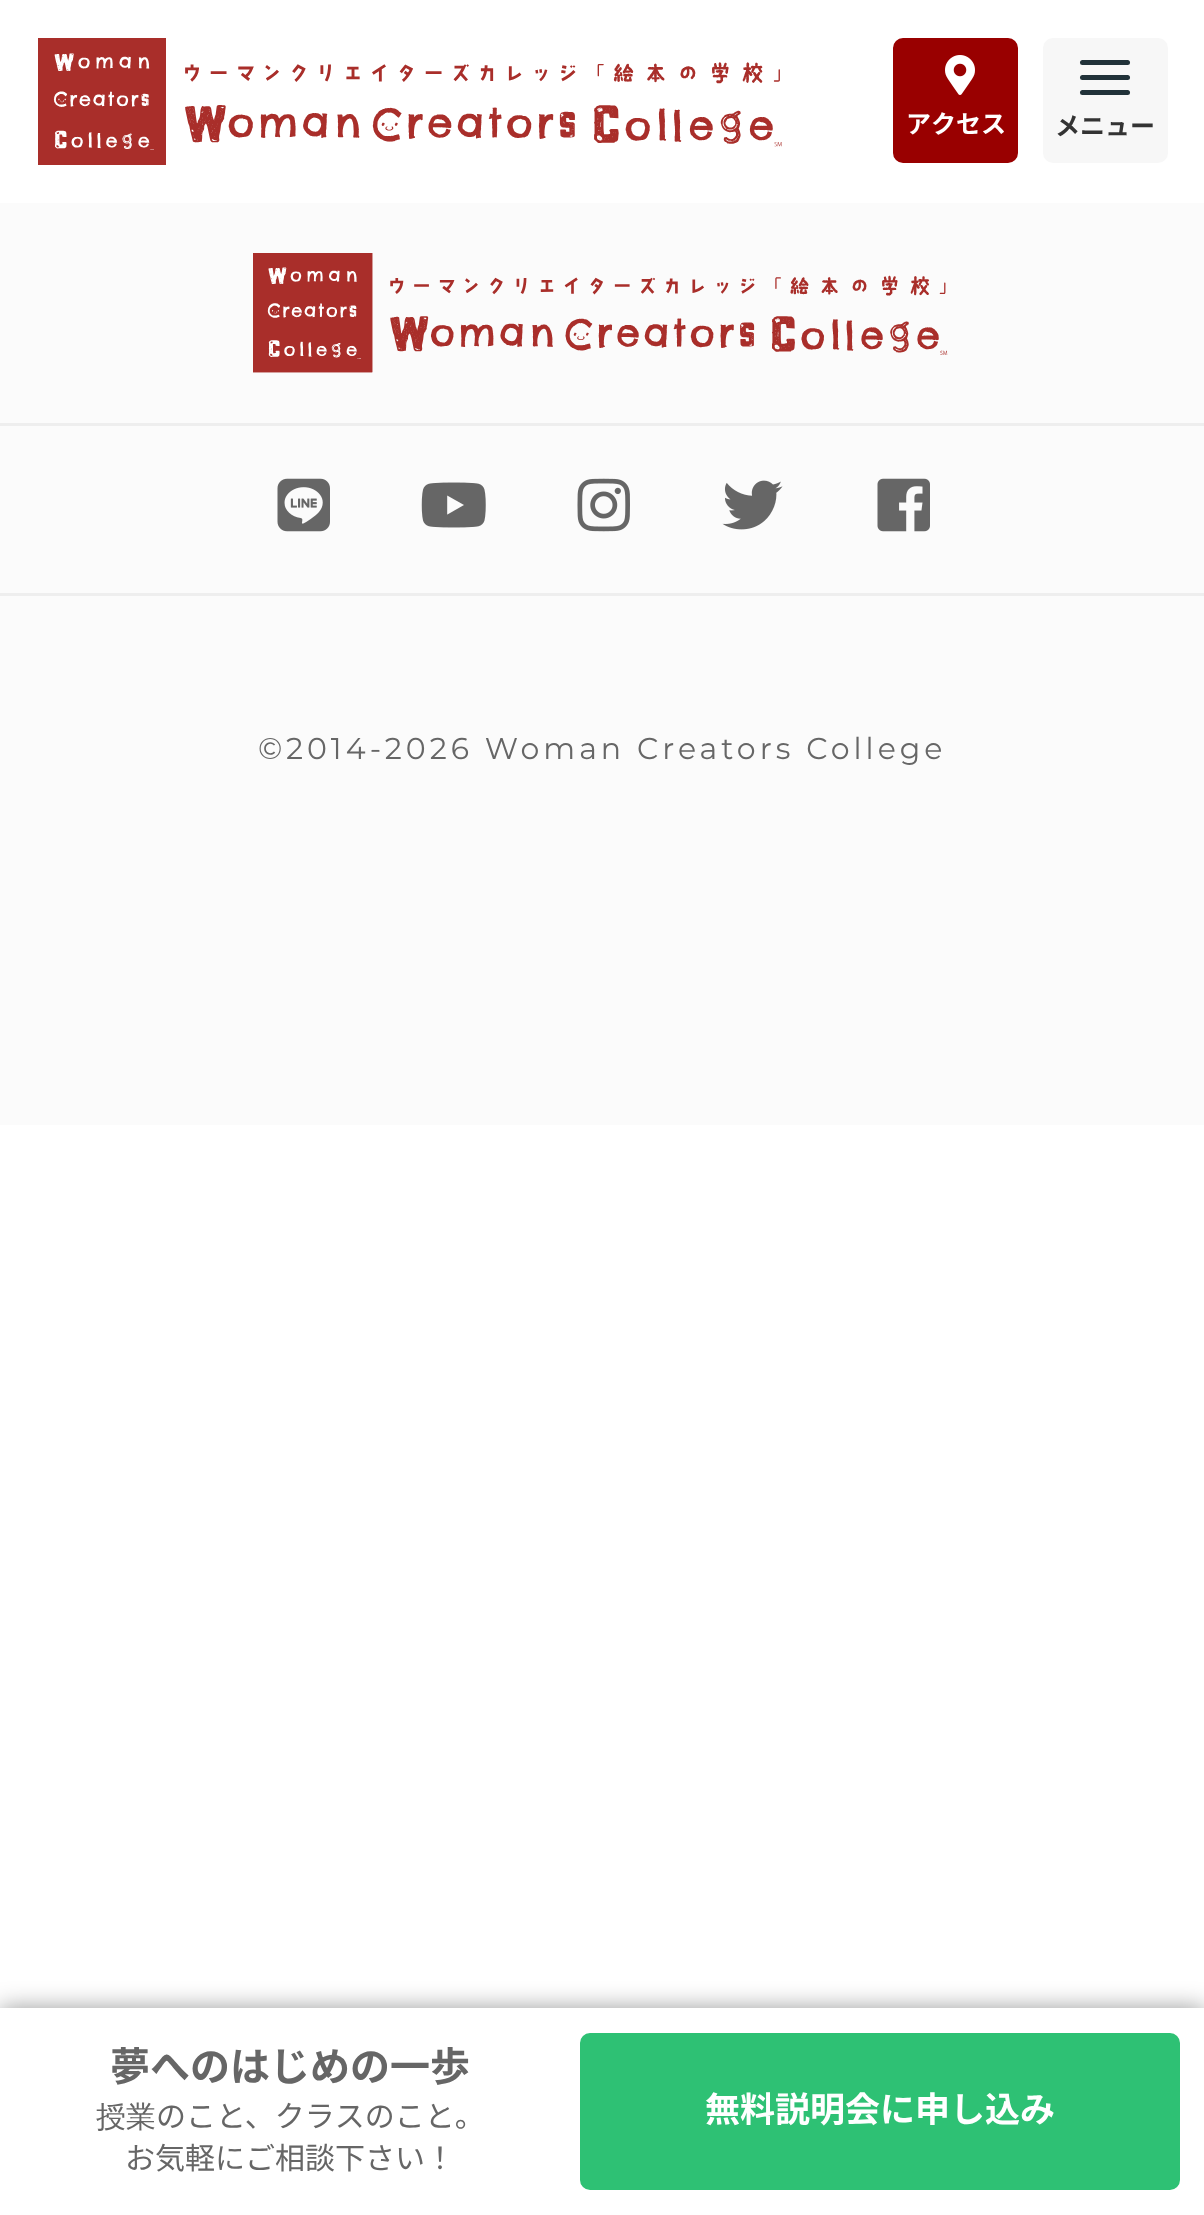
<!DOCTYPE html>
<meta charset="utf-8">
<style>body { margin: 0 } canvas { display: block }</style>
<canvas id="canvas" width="1204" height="2215"></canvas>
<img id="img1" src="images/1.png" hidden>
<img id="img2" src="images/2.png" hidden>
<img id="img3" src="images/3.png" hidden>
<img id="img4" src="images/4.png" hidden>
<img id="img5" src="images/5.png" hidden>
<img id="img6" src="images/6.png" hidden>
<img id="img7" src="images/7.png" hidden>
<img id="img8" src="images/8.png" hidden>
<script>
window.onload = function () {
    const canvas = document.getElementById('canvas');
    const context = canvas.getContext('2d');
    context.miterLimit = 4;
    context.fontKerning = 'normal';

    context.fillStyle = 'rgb(255, 255, 255)';
    context.fillRect(0, 0, 1204, 2215);
    context.drawImage(document.getElementById('img1'), 38, 38, 744, 127);
    context.fillStyle = 'rgb(153, 0, 0)';
    context.beginPath();
    context.roundRect(894.5, 39.5, 122, 122, 8.5);
    context.fill();
    context.strokeStyle = 'rgb(153, 0, 0)';
    context.lineWidth = 3;
    context.stroke();
    context.drawImage(document.getElementById('img2'), 945, 55, 30, 40);
    context.fillStyle = 'rgb(247, 247, 247)';
    context.beginPath();
    context.roundRect(1043, 38, 125, 125, 10);
    context.fill();
    context.fillStyle = 'rgb(33, 50, 57)';
    context.beginPath();
    context.roundRect(1080, 90, 50, 5, 2.5);
    context.fill();
    context.beginPath();
    context.roundRect(1080, 60, 50, 5, 2.5);
    context.fill();
    context.beginPath();
    context.roundRect(1080, 75, 50, 5, 2.5);
    context.fill();
    context.fillStyle = 'rgb(251, 251, 251)';
    context.fillRect(0, 203, 1204, 922);
    context.drawImage(document.getElementById('img3'), 253, 253, 695, 120);
    context.fillStyle = 'rgb(238, 238, 238)';
    context.fillRect(0, 423, 1204, 3);
    context.fillRect(0, 593, 1204, 3);
    context.drawImage(document.getElementById('img4'), 277, 478, 53, 54);
    context.drawImage(document.getElementById('img5'), 421, 482, 65, 46);
    context.drawImage(document.getElementById('img6'), 577, 478, 53, 54);
    context.drawImage(document.getElementById('img7'), 722, 480, 61, 50);
    context.drawImage(document.getElementById('img8'), 877, 478, 53, 54);
    context.fillStyle = 'rgba(0, 0, 0, 0.4)';
    context.filter = 'blur(12.5px)';
    context.beginPath();
    context.rect(0, 2008, 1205, 207);
    context.fill();
    context.filter = 'none';
    context.fillStyle = 'rgb(255, 255, 255)';
    context.fillRect(0, 2008, 1204, 207);
    context.fillStyle = 'rgb(46, 193, 116)';
    context.beginPath();
    context.roundRect(581.5, 2034.5, 597, 154, 8.5);
    context.fill();
    context.strokeStyle = 'rgb(46, 193, 116)';
    context.stroke();
    context.font = 'bold 25px Noto Sans JP';
    context.fillStyle = 'rgb(255, 255, 255)';
    context.fillText('アクセス', 906, 133);
    context.fillStyle = 'rgb(51, 51, 51)';
    context.fillText('メニュー', 1055, 135);
    context.letterSpacing = '4px';
    context.font = '30px Montserrat';
    context.fillStyle = 'rgb(102, 102, 102)';
    context.fillText('©2014-2026 Woman Creators College', 258, 759);
    context.letterSpacing = '0px';
    context.font = 'bold 40px Noto Sans JP';
    context.fillText('夢へのはじめの一歩', 110, 2081);
    context.font = '500 30px WenQuanYi Zen Hei';
    context.fillText('授業', 96, 2127);
    context.font = '30px Noto Sans JP';
    context.fillText('のこと、クラスのこと。', 156, 2127);
    context.fillText('お気軽にご相談下さい！', 125, 2169);
    context.font = 'bold 35px Noto Sans JP';
    context.fillStyle = 'rgb(255, 255, 255)';
    context.fillText('無料説明会に申し込み', 705, 2122);
};
</script>
